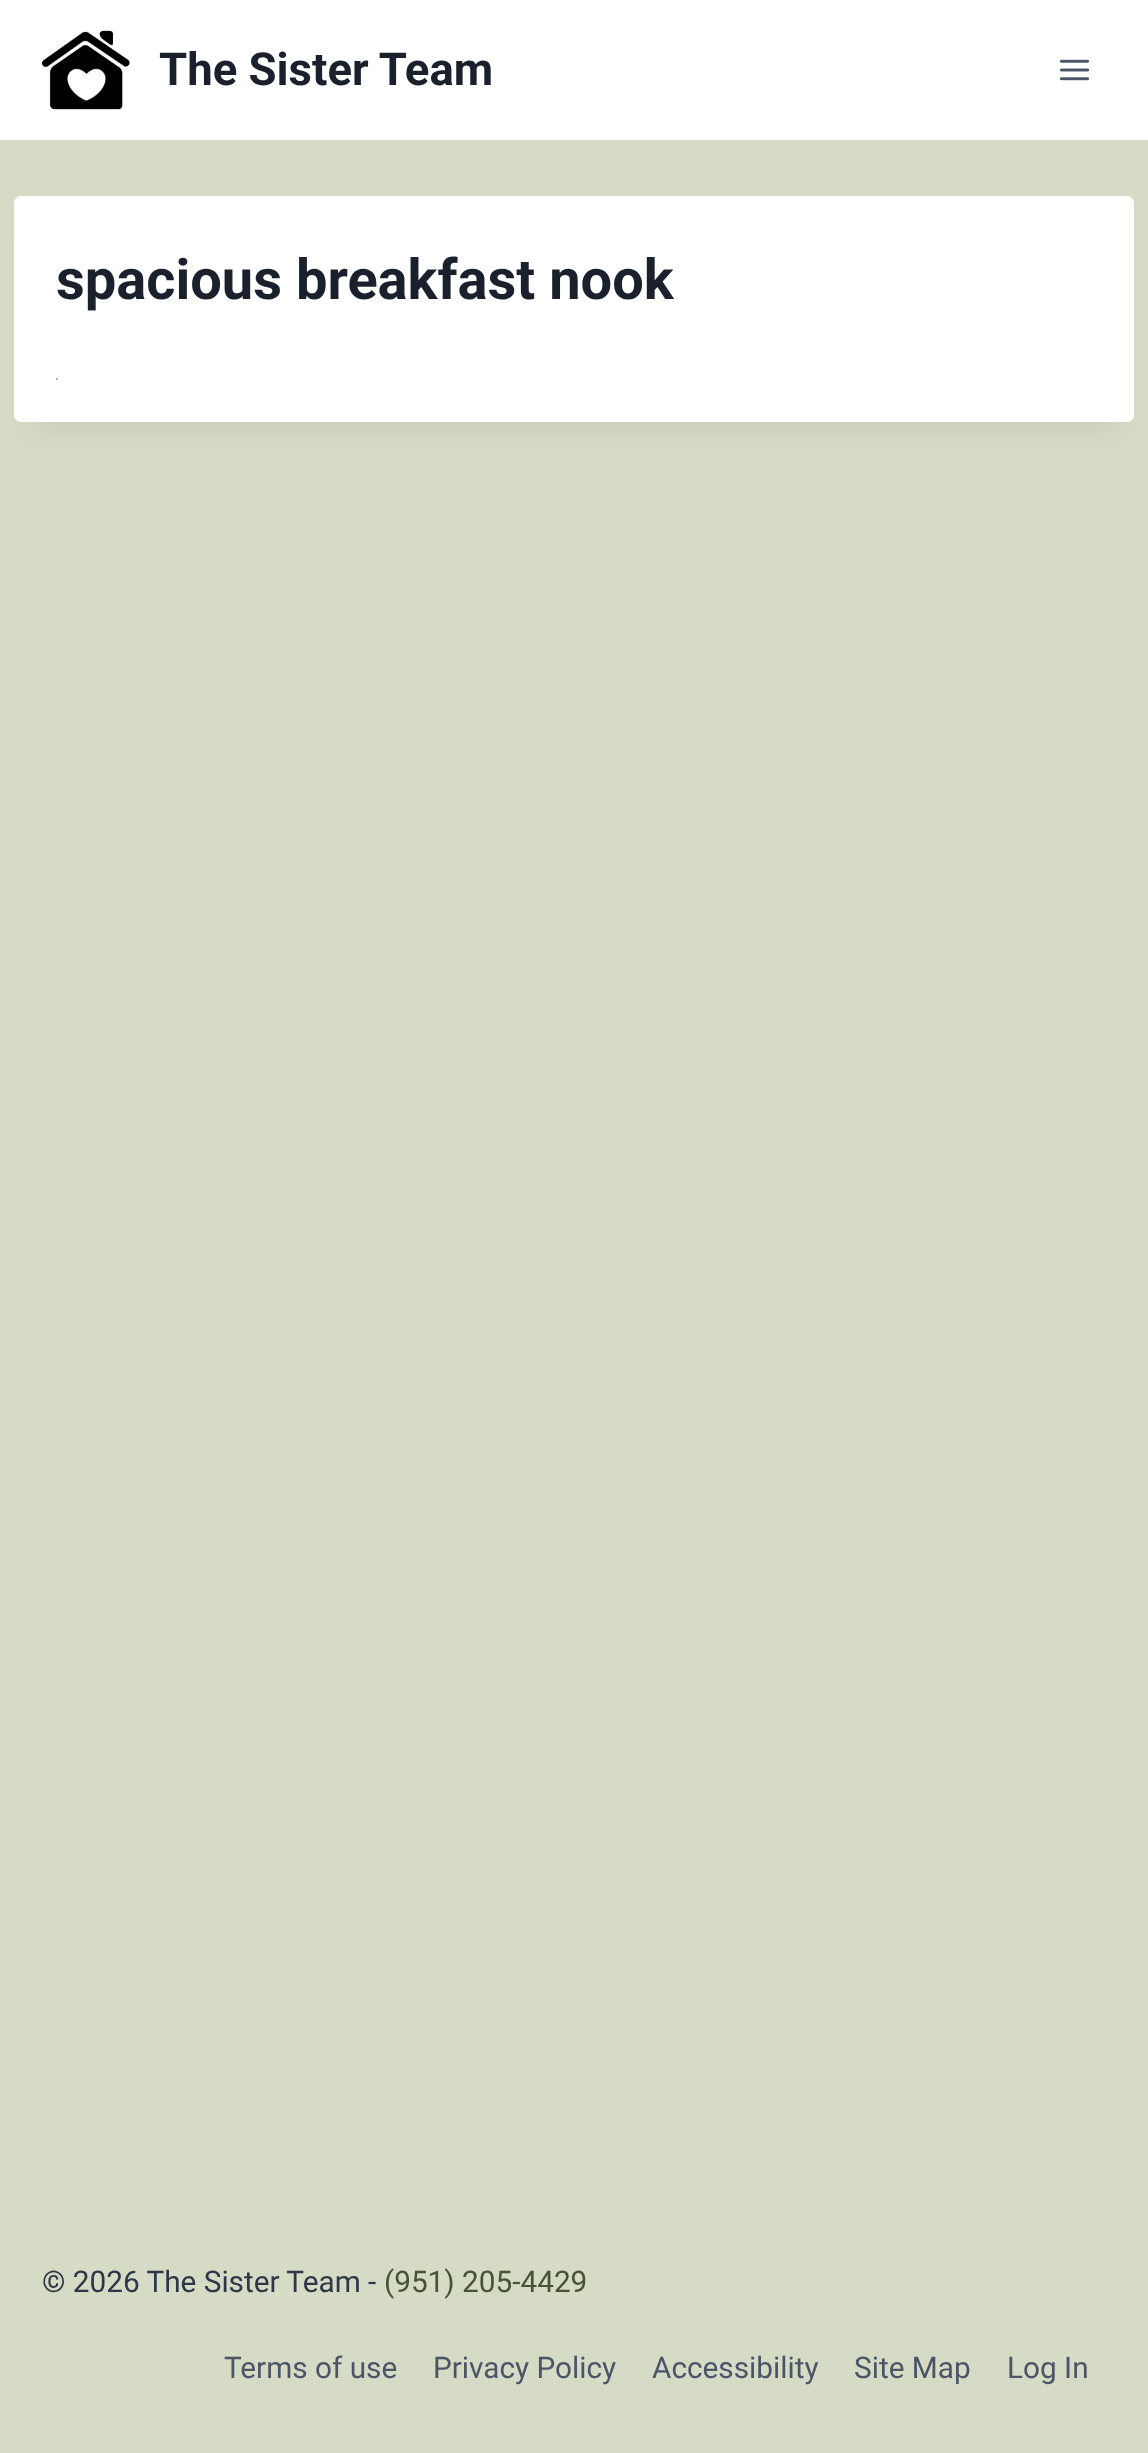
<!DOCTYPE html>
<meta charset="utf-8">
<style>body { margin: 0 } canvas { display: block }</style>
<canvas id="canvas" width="1148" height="2453"></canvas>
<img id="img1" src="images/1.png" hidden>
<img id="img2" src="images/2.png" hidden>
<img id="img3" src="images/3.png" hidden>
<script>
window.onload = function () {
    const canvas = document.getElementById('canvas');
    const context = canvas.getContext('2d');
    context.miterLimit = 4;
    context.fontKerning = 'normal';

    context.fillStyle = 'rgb(213, 219, 196)';
    context.fillRect(0, 0, 1148, 2453);
    context.fillStyle = 'rgb(255, 255, 255)';
    context.fillRect(0, 0, 1148, 140);
    context.drawImage(document.getElementById('img1'), 42, 30, 88, 80);
    context.drawImage(document.getElementById('img2'), 1059, 59, 31, 22);
    context.fillStyle = 'rgba(0, 0, 0, 0.05)';
    context.filter = 'blur(13px)';
    context.beginPath();
    context.rect(32, 240, 1085, 191);
    context.fill();
    context.filter = 'none';
    context.fillStyle = 'rgb(255, 255, 255)';
    context.beginPath();
    context.roundRect(14, 196, 1120, 226, 7);
    context.fill();
    context.drawImage(document.getElementById('img3'), 56, 378, 2, 2);
    context.font = 'bold 45.5px Roboto';
    context.fillStyle = 'rgb(26, 32, 44)';
    context.fillText('The Sister Team', 159, 85);
    context.font = 'bold 56px Roboto';
    context.fillText('spacious breakfast nook', 56, 299);
    context.font = '29.75px Roboto';
    context.fillStyle = 'rgb(45, 55, 72)';
    context.fillText('© 2026 The Sister Team -', 42, 2292);
    context.fillStyle = 'rgb(71, 83, 52)';
    context.fillText('(951) 205-4429', 384, 2292);
    context.fillStyle = 'rgb(74, 85, 104)';
    context.fillText('Terms of use', 224, 2378);
    context.fillText('Privacy Policy', 433, 2378);
    context.fillText('Accessibility', 652, 2378);
    context.fillText('Site Map', 854, 2378);
    context.fillText('Log In', 1007, 2378);
};
</script>
